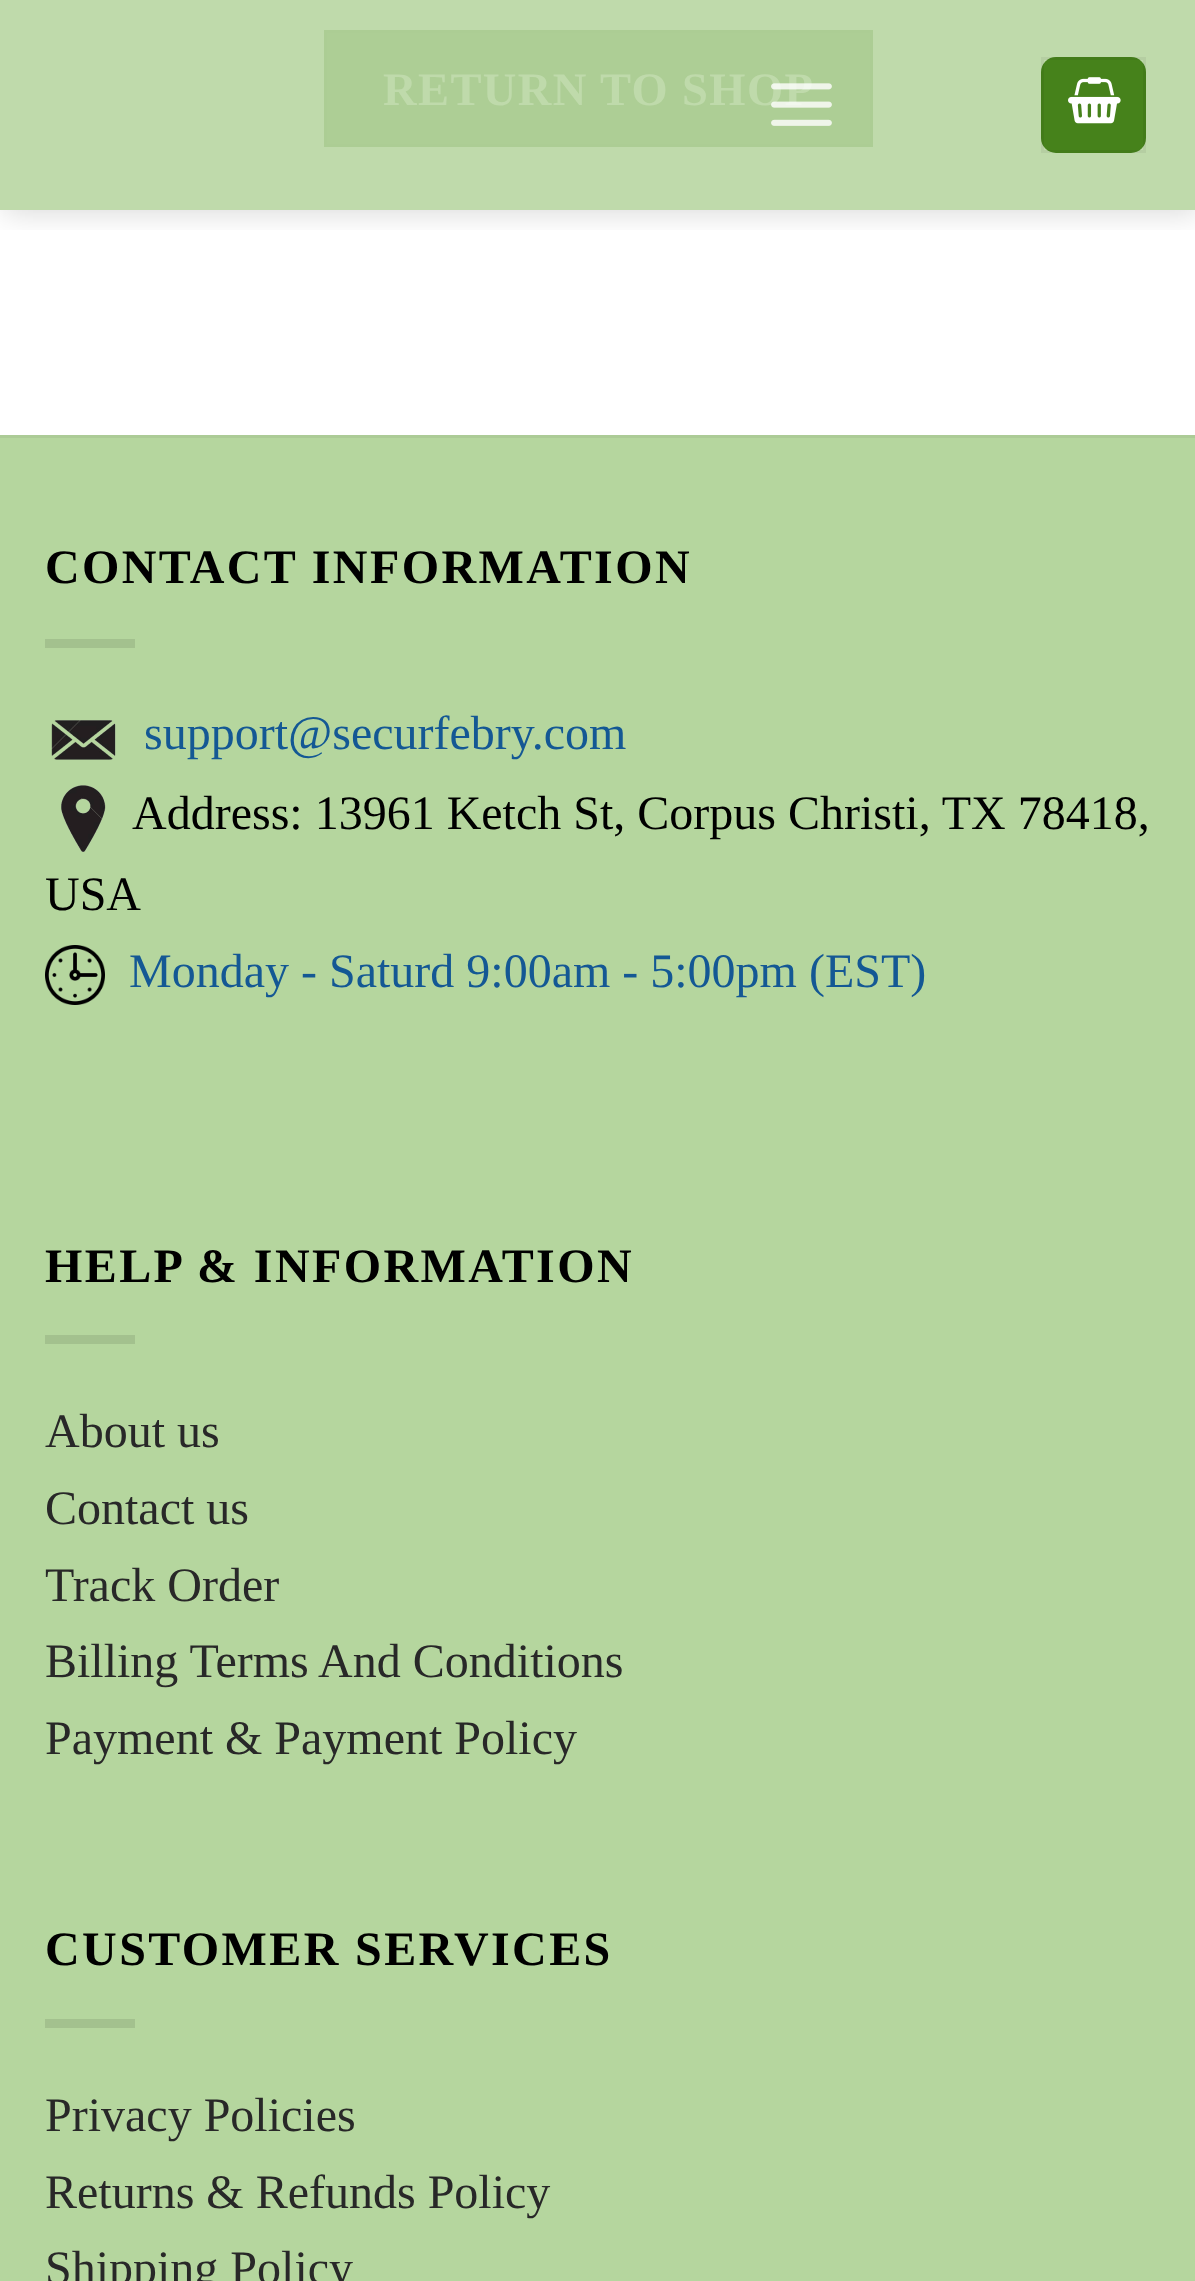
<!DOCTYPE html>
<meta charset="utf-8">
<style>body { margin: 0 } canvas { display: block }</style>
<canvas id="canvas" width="1195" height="2281"></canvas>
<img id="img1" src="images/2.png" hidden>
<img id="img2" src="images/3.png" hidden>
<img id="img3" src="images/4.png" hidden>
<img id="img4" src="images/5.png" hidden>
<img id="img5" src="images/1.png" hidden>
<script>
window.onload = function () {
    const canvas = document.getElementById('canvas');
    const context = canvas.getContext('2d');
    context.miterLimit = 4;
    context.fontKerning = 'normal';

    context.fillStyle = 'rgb(255, 255, 255)';
    context.fillRect(0, 0, 1195, 2281);
    context.fillStyle = 'rgb(191, 218, 171)';
    context.fillRect(0, 0, 1195, 210);
    context.fillStyle = 'rgb(173, 206, 149)';
    context.beginPath();
    context.rect(325.5, 31.5, 546, 114);
    context.fill();
    context.strokeStyle = 'rgb(172, 205, 148)';
    context.lineWidth = 3;
    context.stroke();
    context.save();
    context.beginPath();
    context.rect(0, 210, 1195, 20);
    context.clip();
    context.fillStyle = 'rgba(0, 0, 0, 0.15)';
    context.filter = 'blur(15px)';
    context.beginPath();
    context.rect(3, 3, 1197, 210);
    context.fill();
    context.filter = 'none';
    context.restore();
    context.fillStyle = 'rgb(70, 130, 27)';
    context.beginPath();
    context.roundRect(1041, 57, 105, 96, 15);
    context.fill();
    context.strokeStyle = 'rgba(0, 0, 0, 0.05)';
    context.strokeRect(1042.5, 58.5, 102, 93);
    context.drawImage(document.getElementById('img1'), 1068, 77, 53, 47);
    context.fillStyle = 'rgb(181, 214, 158)';
    context.fillRect(0, 438, 1195, 1843);
    context.fillStyle = 'rgb(172, 203, 150)';
    context.fillRect(0, 435, 1195, 3);
    context.fillStyle = 'rgb(163, 193, 142)';
    context.fillRect(45, 639, 90, 9);
    context.drawImage(document.getElementById('img2'), 51, 720, 65, 40);
    context.drawImage(document.getElementById('img3'), 61, 785, 45, 67);
    context.drawImage(document.getElementById('img4'), 45, 945, 60, 60);
    context.fillRect(45, 1335, 90, 9);
    context.fillRect(45, 2019, 90, 9);
    context.letterSpacing = '1.4px';
    context.font = 'bold 46.5px Liberation Serif';
    context.fillStyle = 'rgb(191, 218, 171)';
    context.fillText('RETURN TO SHOP', 383, 105);
    context.drawImage(document.getElementById('img5'), 771, 83, 61, 43);
    context.letterSpacing = '2.4px';
    context.font = 'bold 48px Liberation Serif';
    context.fillStyle = 'rgb(0, 0, 0)';
    context.fillText('CONTACT INFORMATION', 45, 583);
    context.letterSpacing = '0px';
    context.font = '48px Liberation Serif';
    context.fillStyle = 'rgb(20, 88, 148)';
    context.fillText('support@securfebry.com', 144, 749);
    context.fillStyle = 'rgb(0, 0, 0)';
    context.fillText('Address: 13961 Ketch St, Corpus Christi, TX 78418,', 132, 829);
    context.fillText('USA', 45, 910);
    context.fillStyle = 'rgb(20, 88, 148)';
    context.fillText('Monday - Saturd 9:00am - 5:00pm (EST)', 129, 987);
    context.letterSpacing = '2.4px';
    context.font = 'bold 48px Liberation Serif';
    context.fillStyle = 'rgb(0, 0, 0)';
    context.fillText('HELP & INFORMATION', 45, 1282);
    context.letterSpacing = '0px';
    context.font = '48px Liberation Serif';
    context.fillStyle = 'rgb(40, 40, 40)';
    context.fillText('About us', 45, 1447);
    context.fillText('Contact us', 45, 1524);
    context.fillText('Track Order', 45, 1601);
    context.fillText('Billing Terms And Conditions', 45, 1677);
    context.fillText('Payment & Payment Policy', 45, 1754);
    context.letterSpacing = '2.4px';
    context.font = 'bold 48px Liberation Serif';
    context.fillStyle = 'rgb(0, 0, 0)';
    context.fillText('CUSTOMER SERVICES', 45, 1965);
    context.letterSpacing = '0px';
    context.font = '48px Liberation Serif';
    context.fillStyle = 'rgb(40, 40, 40)';
    context.fillText('Privacy Policies', 45, 2131);
    context.fillText('Returns & Refunds Policy', 45, 2208);
    context.fillText('Shipping Policy', 45, 2284);
};
</script>
